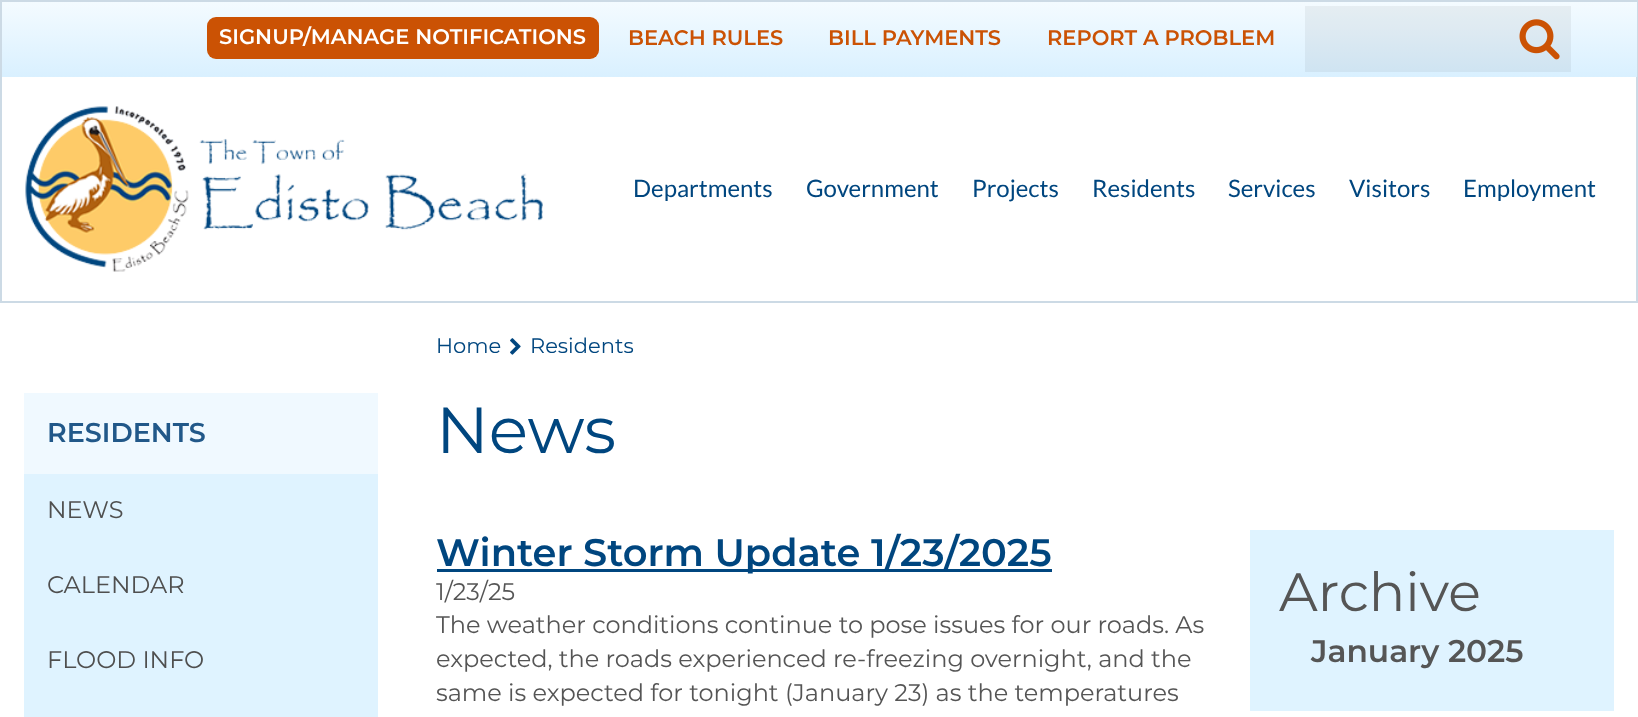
<!DOCTYPE html>
<meta charset="utf-8">
<style>body { margin: 0 } canvas { display: block }</style>
<canvas id="canvas" width="1638" height="717"></canvas>
<img id="img1" src="images/1.png" hidden>
<img id="img2" src="images/2.png" hidden>
<img id="img3" src="images/3.png" hidden>
<script>
window.onload = function () {
    const canvas = document.getElementById('canvas');
    const context = canvas.getContext('2d');
    context.miterLimit = 4;
    context.fontKerning = 'normal';
    let gradient;

    context.fillStyle = 'rgb(255, 255, 255)';
    context.fillRect(0, 0, 1638, 717);
    context.strokeStyle = 'rgb(204, 218, 229)';
    context.lineWidth = 2;
    context.strokeRect(1, 1, 1636, 301);
    gradient = context.createLinearGradient(819, 1.5, 819, 77);
    gradient.addColorStop(0, 'rgb(244, 251, 255)');
    gradient.addColorStop(1, 'rgb(217, 240, 255)');
    context.fillStyle = gradient;
    context.fillRect(2, 2, 1635, 75);
    context.fillStyle = 'rgb(203, 82, 4)';
    context.beginPath();
    context.roundRect(207, 17, 392, 42, 9);
    context.fill();
    context.fillStyle = 'rgba(0, 0, 0, 0.05)';
    context.fillRect(1305, 6, 266, 66);
    context.drawImage(document.getElementById('img1'), 1519, 19, 41, 41);
    context.drawImage(document.getElementById('img2'), 25, 106, 518, 166);
    context.fillStyle = 'rgb(240, 249, 255)';
    context.fillRect(24, 393, 354, 81);
    context.fillStyle = 'rgb(223, 243, 255)';
    context.fillRect(24, 474, 354, 243);
    context.drawImage(document.getElementById('img3'), 510, 338, 11, 17);
    context.fillStyle = 'rgb(0, 70, 127)';
    context.fillRect(437, 569, 615, 3);
    context.fillStyle = 'rgb(223, 243, 255)';
    context.fillRect(1250, 530, 364, 181);
    context.font = '600 21px Montserrat';
    context.fillStyle = 'rgb(255, 255, 255)';
    context.fillText('SIGNUP/MANAGE NOTIFICATIONS', 219, 44);
    context.fillStyle = 'rgb(203, 82, 4)';
    context.fillText('BEACH RULES', 628, 45);
    context.fillText('BILL PAYMENTS', 828, 45);
    context.fillText('REPORT A PROBLEM', 1047, 45);
    context.font = '24px Lato';
    context.fillStyle = 'rgb(0, 70, 127)';
    context.fillText('Departments', 633, 197);
    context.fillText('Government', 806, 197);
    context.fillText('Projects', 972, 197);
    context.fillText('Residents', 1092, 197);
    context.fillText('Services', 1228, 197);
    context.fillText('Visitors', 1349, 197);
    context.fillText('Employment', 1463, 197);
    context.font = '600 27px Montserrat';
    context.fillStyle = 'rgb(33, 88, 137)';
    context.fillText('RESIDENTS', 47, 442);
    context.font = '24px Montserrat';
    context.fillStyle = 'rgb(79, 79, 79)';
    context.fillText('NEWS', 47, 518);
    context.fillText('CALENDAR', 47, 593);
    context.fillText('FLOOD INFO', 47, 668);
    context.font = '21px Montserrat';
    context.fillStyle = 'rgb(0, 70, 127)';
    context.fillText('Home', 436, 353);
    context.fillText('Residents', 530, 353);
    context.font = '65px Montserrat';
    context.fillText('News', 436, 453);
    context.font = '600 38.4px Montserrat';
    context.fillText('Winter Storm Update 1/23/2025', 436, 566);
    context.font = '24px Montserrat';
    context.fillStyle = 'rgb(85, 85, 85)';
    context.fillText('1/23/25', 436, 600);
    context.fillText('The weather conditions continue to pose issues for our roads. As', 436, 633);
    context.fillText('expected, the roads experienced re-freezing overnight, and the', 436, 667);
    context.fillText('same is expected for tonight (January 23) as the temperatures', 436, 701);
    context.font = '54px Montserrat';
    context.fillText('Archive', 1279, 611);
    context.font = '600 31.25px Montserrat';
    context.fillText('January 2025', 1311, 662);
};
</script>
